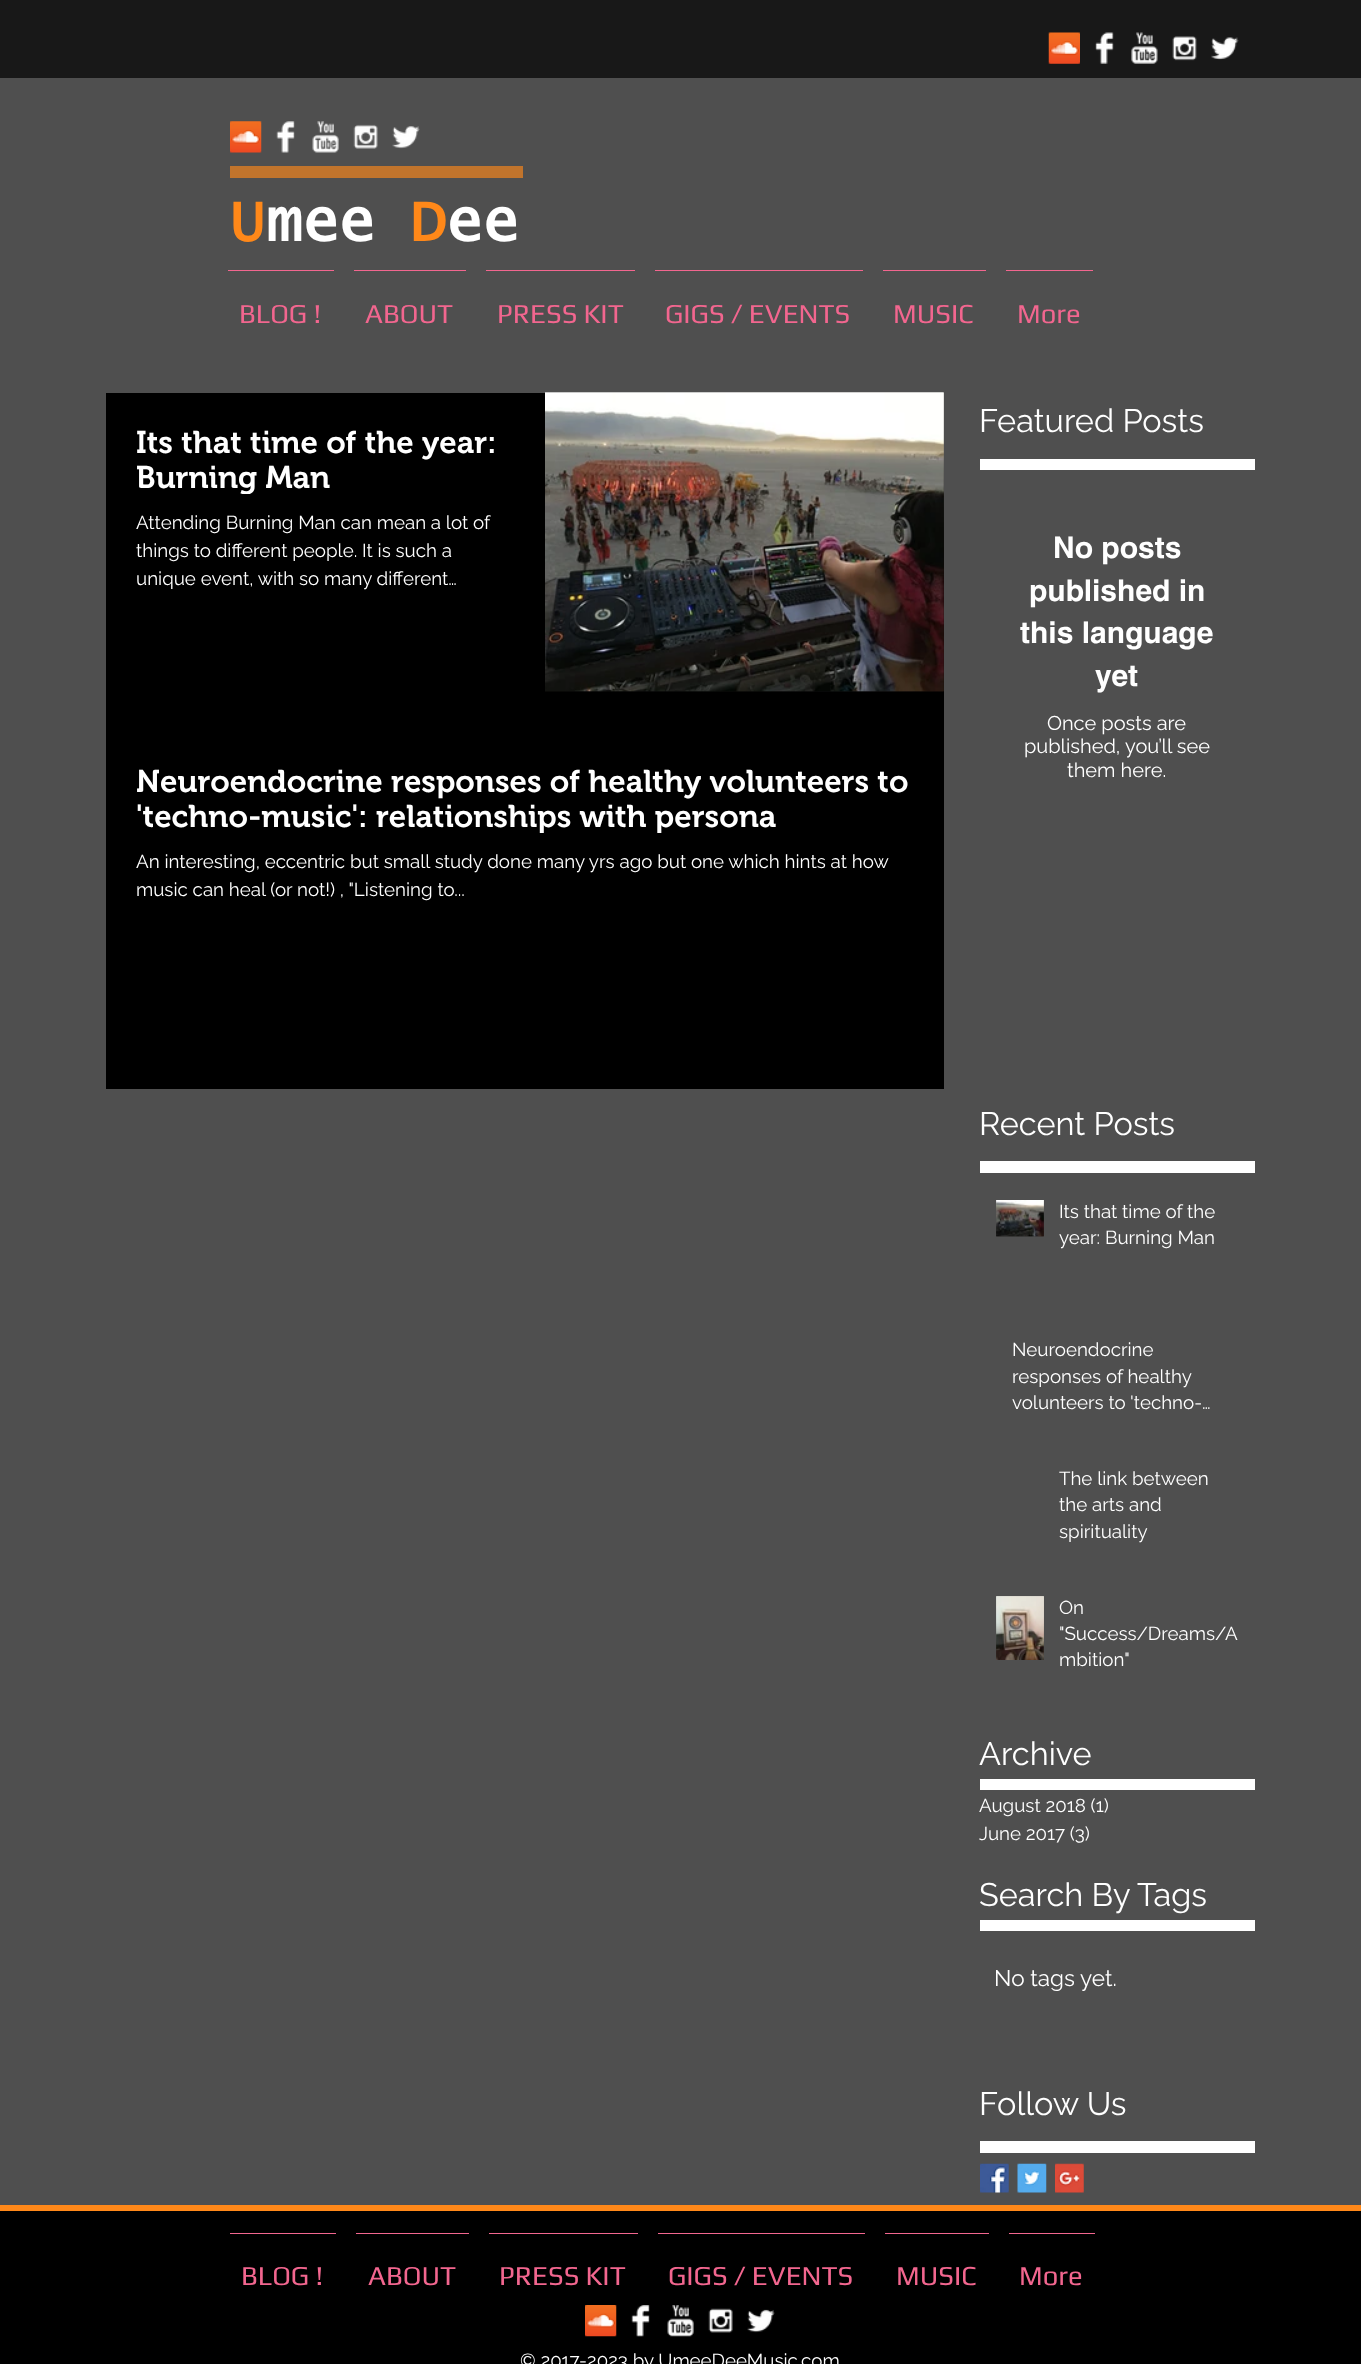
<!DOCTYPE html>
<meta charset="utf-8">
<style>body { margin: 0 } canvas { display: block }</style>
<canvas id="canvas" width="1361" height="2364"></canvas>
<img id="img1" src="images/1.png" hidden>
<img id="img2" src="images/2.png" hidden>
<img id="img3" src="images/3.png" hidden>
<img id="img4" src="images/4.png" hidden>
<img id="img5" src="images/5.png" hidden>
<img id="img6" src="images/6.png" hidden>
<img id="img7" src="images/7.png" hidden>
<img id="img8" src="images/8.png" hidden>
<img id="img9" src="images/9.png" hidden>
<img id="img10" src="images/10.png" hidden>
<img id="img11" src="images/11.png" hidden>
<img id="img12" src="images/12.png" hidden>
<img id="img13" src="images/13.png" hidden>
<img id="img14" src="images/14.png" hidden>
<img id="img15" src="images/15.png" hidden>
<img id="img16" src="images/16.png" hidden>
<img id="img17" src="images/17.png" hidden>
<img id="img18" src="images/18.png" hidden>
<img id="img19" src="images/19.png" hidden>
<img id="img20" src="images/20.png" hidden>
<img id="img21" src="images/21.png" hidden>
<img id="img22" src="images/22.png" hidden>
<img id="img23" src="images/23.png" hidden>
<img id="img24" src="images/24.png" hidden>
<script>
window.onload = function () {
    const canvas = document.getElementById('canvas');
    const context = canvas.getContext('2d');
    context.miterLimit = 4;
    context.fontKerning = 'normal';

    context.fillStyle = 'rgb(79, 79, 79)';
    context.fillRect(0, 0, 1361, 2364);
    context.fillStyle = 'rgb(24, 24, 24)';
    context.fillRect(0, 0, 1361, 78);
    context.drawImage(document.getElementById('img1'), 1048, 32, 32, 32);
    context.drawImage(document.getElementById('img2'), 1095, 32, 19, 32);
    context.drawImage(document.getElementById('img3'), 1131, 32, 27, 32);
    context.drawImage(document.getElementById('img4'), 1172, 36, 25, 25);
    context.drawImage(document.getElementById('img5'), 1211, 37, 28, 23);
    context.drawImage(document.getElementById('img6'), 230, 121, 32, 32);
    context.drawImage(document.getElementById('img7'), 276, 121, 19, 32);
    context.drawImage(document.getElementById('img8'), 312, 121, 27, 32);
    context.drawImage(document.getElementById('img9'), 353, 124, 25, 25);
    context.drawImage(document.getElementById('img10'), 392, 126, 28, 23);
    context.fillStyle = 'rgb(193, 116, 44)';
    context.fillRect(230, 166, 293, 12);
    context.fillStyle = 'rgb(242, 102, 143)';
    context.fillRect(228, 270, 106, 1);
    context.fillRect(354, 270, 112, 1);
    context.fillRect(486, 270, 149, 1);
    context.fillRect(655, 270, 208, 1);
    context.fillRect(883, 270, 103, 1);
    context.fillRect(1006, 270, 87, 1);
    context.fillStyle = 'rgb(0, 0, 0)';
    context.fillRect(106, 393, 838, 696);
    context.drawImage(document.getElementById('img11'), 545, 392, 399, 300);
    context.drawImage(document.getElementById('img12'), 545, 392, 399, 300);
    context.fillStyle = 'rgb(255, 255, 255)';
    context.fillRect(980, 459, 275, 11);
    context.fillRect(980, 1161, 275, 12);
    context.drawImage(document.getElementById('img13'), 996, 1200, 48, 37);
    context.drawImage(document.getElementById('img14'), 996, 1200, 48, 37);
    context.drawImage(document.getElementById('img15'), 996, 1596, 48, 64);
    context.drawImage(document.getElementById('img16'), 996, 1596, 48, 64);
    context.fillRect(980, 1779, 275, 11);
    context.fillRect(980, 1920, 275, 11);
    context.fillRect(980, 2141, 275, 12);
    context.drawImage(document.getElementById('img17'), 980, 2163, 29, 30);
    context.drawImage(document.getElementById('img18'), 1017, 2163, 30, 30);
    context.drawImage(document.getElementById('img19'), 1055, 2163, 29, 30);
    context.fillStyle = 'rgb(0, 0, 0)';
    context.fillRect(0, 2211, 1361, 153);
    context.fillStyle = 'rgb(255, 136, 25)';
    context.fillRect(0, 2205, 1361, 6);
    context.fillStyle = 'rgb(242, 102, 143)';
    context.fillRect(230, 2233, 106, 1);
    context.fillRect(356, 2233, 113, 1);
    context.fillRect(489, 2233, 149, 1);
    context.fillRect(658, 2233, 207, 1);
    context.fillRect(885, 2233, 104, 1);
    context.fillRect(1009, 2233, 86, 1);
    context.drawImage(document.getElementById('img20'), 585, 2305, 32, 32);
    context.drawImage(document.getElementById('img21'), 631, 2305, 19, 32);
    context.drawImage(document.getElementById('img22'), 667, 2305, 27, 32);
    context.drawImage(document.getElementById('img23'), 708, 2308, 25, 25);
    context.drawImage(document.getElementById('img24'), 747, 2309, 28, 24);
    context.font = 'bold 60px "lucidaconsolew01"';
    context.fillStyle = 'rgb(255, 136, 25)';
    context.fillText('U', 229, 241);
    context.fillStyle = 'rgb(255, 255, 255)';
    context.fillText('mee', 266, 241);
    context.fillStyle = 'rgb(255, 136, 25)';
    context.fillText('D', 410, 241);
    context.fillStyle = 'rgb(255, 255, 255)';
    context.fillText('ee', 446, 241);
    context.font = '27.5px Play';
    context.fillStyle = 'rgb(242, 102, 143)';
    context.fillText('BLOG !', 239, 323);
    context.fillText('ABOUT', 365, 323);
    context.fillText('PRESS KIT', 497, 323);
    context.fillText('GIGS / EVENTS', 665, 323);
    context.fillText('MUSIC', 893, 323);
    context.fillText('More', 1017, 323);
    context.font = '32.5px Raleway';
    context.fillStyle = 'rgb(255, 255, 255)';
    context.fillText('Featured Posts', 979, 432);
    context.font = '600 31.25px "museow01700"';
    context.fillText('Its that time of the year:', 136, 453);
    context.save();
    context.beginPath();
    context.rect(136, 424, 379, 70);
    context.clip();
    context.fillText('Burning Man', 136, 488);
    context.restore();
    context.font = '18.75px Raleway';
    context.fillText('Attending Burning Man can mean a lot of', 136, 529);
    context.fillText('things to different people. It is such a', 136, 557);
    context.fillText('unique event, with so many different…', 136, 585);
    context.font = '600 31.25px "museow01700"';
    context.fillText('Neuroendocrine responses of healthy volunteers to', 136, 792);
    context.save();
    context.beginPath();
    context.rect(136, 763, 778, 70);
    context.clip();
    context.fillText('\'techno-music\': relationships with persona', 136, 827);
    context.restore();
    context.font = '18.75px Raleway';
    context.fillText('An interesting, eccentric but small study done many yrs ago but one which hints at how', 136, 868);
    context.fillText('music can heal (or not!) , "Listening to...', 136, 896);
    context.font = 'bold 30px helvetica';
    context.fillText('No posts', 1053, 558);
    context.fillText('published in', 1029, 601);
    context.fillText('this language', 1020, 643);
    context.fillText('yet', 1095, 686);
    context.font = '20px Raleway';
    context.fillText('Once posts are', 1047, 730);
    context.fillText('published, you’ll see', 1024, 753);
    context.fillText('them here.', 1067, 777);
    context.font = '32.5px Raleway';
    context.fillText('Recent Posts', 979, 1135);
    context.font = '18.75px Raleway';
    context.fillText('Its that time of the', 1059, 1218);
    context.fillText('year: Burning Man', 1059, 1244);
    context.fillText('Neuroendocrine', 1012, 1356);
    context.fillText('responses of healthy', 1012, 1383);
    context.fillText('volunteers to \'techno-…', 1012, 1409);
    context.fillText('The link between', 1059, 1485);
    context.fillText('the arts and', 1059, 1511);
    context.fillText('spirituality', 1059, 1538);
    context.fillText('On', 1059, 1614);
    context.fillText('"Success/Dreams/A', 1059, 1640);
    context.fillText('mbition"', 1059, 1666);
    context.font = '32.5px Raleway';
    context.fillText('Archive', 979, 1765);
    context.font = '18.75px Raleway';
    context.fillText('August 2018 (1)', 979, 1812);
    context.fillText('June 2017 (3)', 979, 1840);
    context.font = '32.5px Raleway';
    context.fillText('Search By Tags', 979, 1906);
    context.font = '22.5px Raleway';
    context.fillText('No tags yet.', 994, 1986);
    context.font = '32.5px Raleway';
    context.fillText('Follow Us', 979, 2115);
    context.font = '27.5px Play';
    context.fillStyle = 'rgb(242, 102, 143)';
    context.fillText('BLOG !', 241, 2285);
    context.fillText('ABOUT', 368, 2285);
    context.fillText('PRESS KIT', 499, 2285);
    context.fillText('GIGS / EVENTS', 668, 2285);
    context.fillText('MUSIC', 896, 2285);
    context.fillText('More', 1019, 2285);
    context.font = '18.75px Raleway';
    context.fillStyle = 'rgb(255, 255, 255)';
    context.fillText('© 2017-2023 by UmeeDeeMusic.com', 520, 2367);
};
</script>
